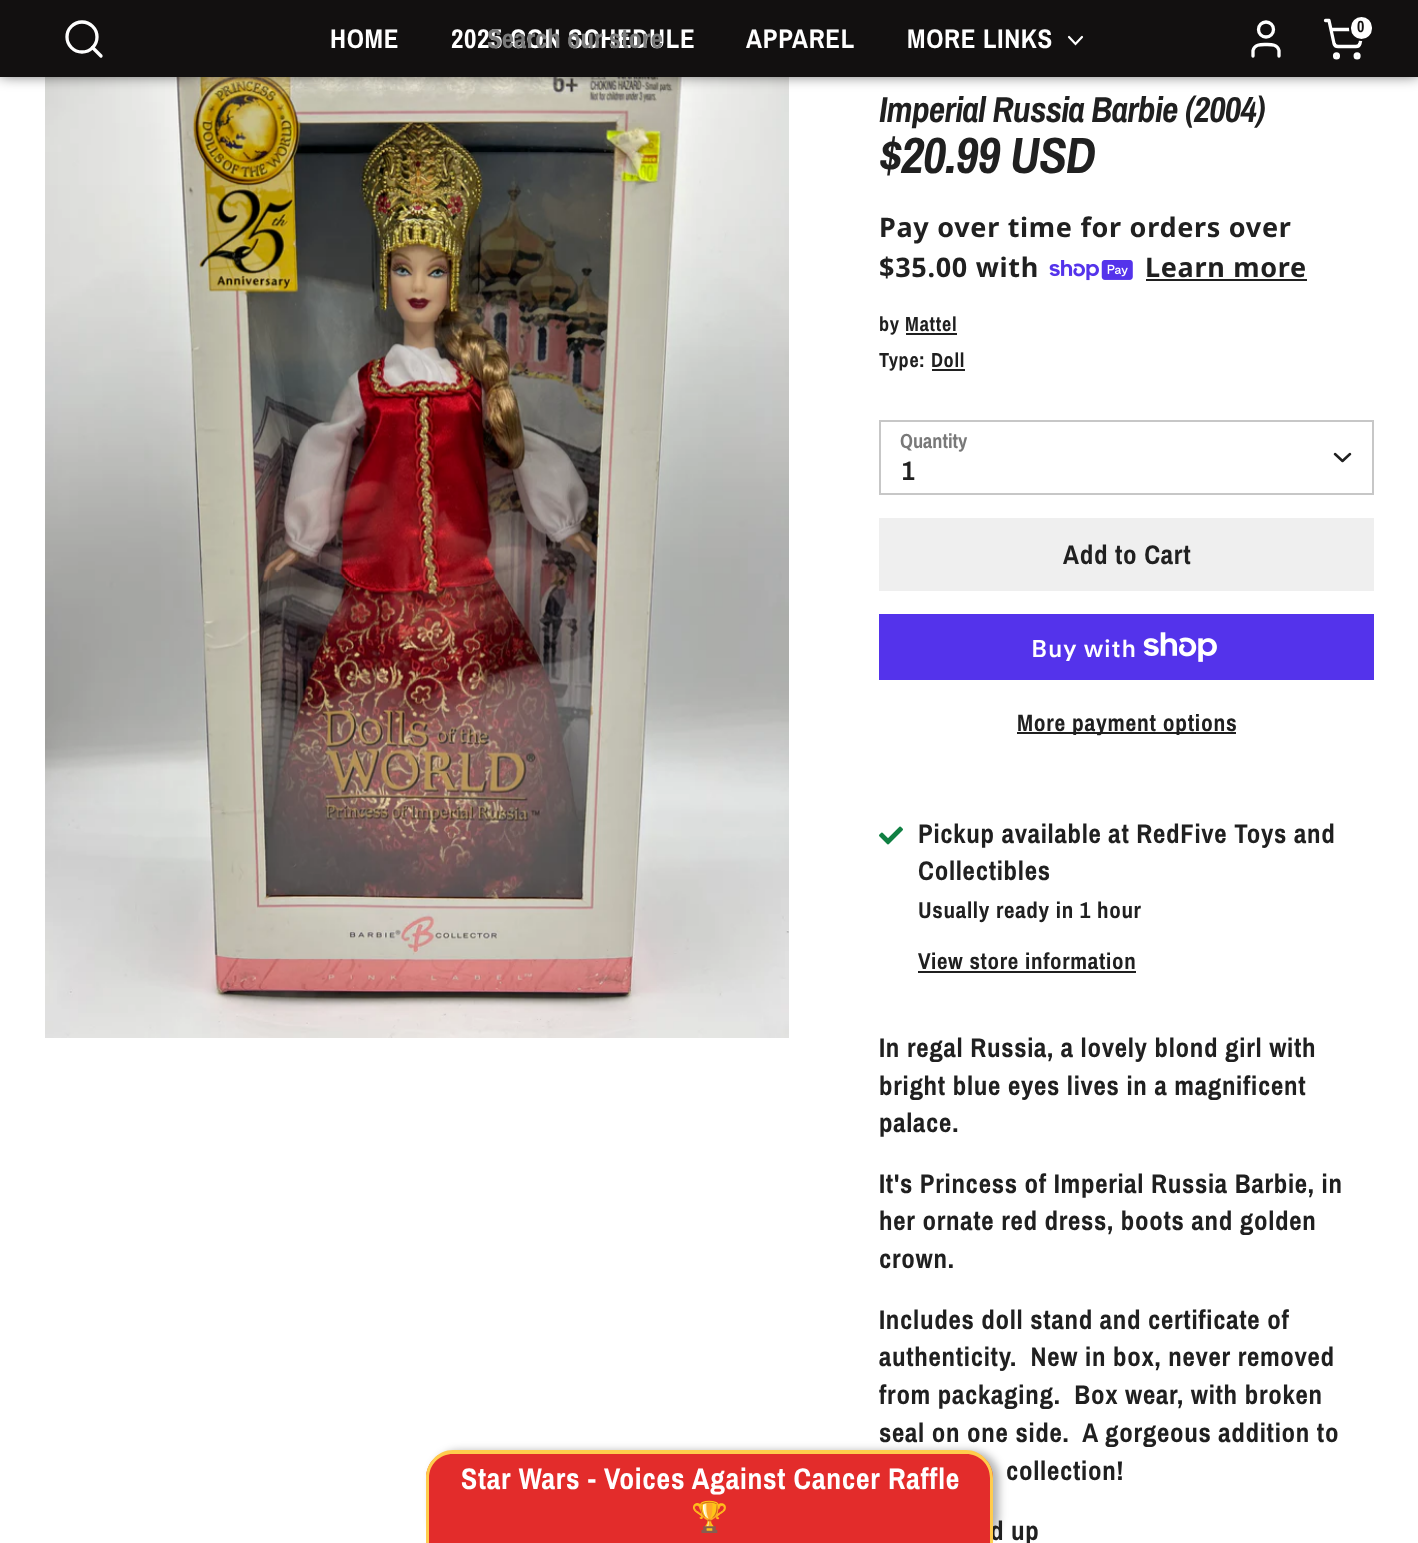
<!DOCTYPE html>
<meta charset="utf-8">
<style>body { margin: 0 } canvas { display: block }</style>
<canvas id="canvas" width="1418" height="1543"></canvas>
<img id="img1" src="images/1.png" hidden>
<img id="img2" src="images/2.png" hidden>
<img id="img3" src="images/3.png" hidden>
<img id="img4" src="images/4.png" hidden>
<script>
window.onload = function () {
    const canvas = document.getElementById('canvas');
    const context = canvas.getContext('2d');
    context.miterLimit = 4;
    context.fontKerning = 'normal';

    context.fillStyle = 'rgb(255, 255, 255)';
    context.fillRect(0, 0, 1418, 1543);
    context.drawImage(document.getElementById('img1'), 45, 77, 744, 961);
    context.fillStyle = 'rgba(0, 0, 0, 0.75)';
    context.filter = 'blur(7.5px)';
    context.beginPath();
    context.rect(0, -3, 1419, 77);
    context.fill();
    context.filter = 'none';
    context.fillStyle = 'rgb(18, 16, 16)';
    context.fillRect(0, 0, 1418, 77);
    context.beginPath();
    context.arc(82, 37, 15, 0, 2 * Math.PI);
    context.strokeStyle = 'rgb(255, 255, 255)';
    context.lineWidth = 3.3;
    context.stroke();
    context.beginPath();
    context.moveTo(101, 56);
    context.lineTo(92.5, 47.5);
    context.lineCap = 'round';
    context.lineJoin = 'round';
    context.stroke();
    context.beginPath();
    context.moveTo(1279, 56);
    context.lineTo(1279, 50.5);
    context.bezierCurveTo(1277.5, 44, 1271, 44.5, 1266, 44.5);
    context.bezierCurveTo(1261, 44.5, 1254.5, 44, 1253, 50.5);
    context.lineTo(1253, 56);
    context.stroke();
    context.beginPath();
    context.arc(1266, 29.5, 7.5, 0, 2 * Math.PI);
    context.stroke();
    context.beginPath();
    context.arc(1336.5, 55.9, 1.9, 0, 2 * Math.PI);
    context.stroke();
    context.beginPath();
    context.arc(1357.1, 55.9, 1.9, 0, 2 * Math.PI);
    context.stroke();
    context.beginPath();
    context.moveTo(1325.5, 20.5);
    context.lineTo(1329, 20.5);
    context.lineTo(1334, 43.5);
    context.bezierCurveTo(1334.5, 45.5, 1336, 46.5, 1338, 46.5);
    context.lineTo(1356, 46.5);
    context.bezierCurveTo(1358, 46.5, 1359.5, 45.5, 1360, 43.5);
    context.lineTo(1363, 29.5);
    context.lineTo(1331, 29.5);
    context.stroke();
    context.fillStyle = 'rgb(255, 255, 255)';
    context.beginPath();
    context.roundRect(1350, 16, 23, 24, 11.5);
    context.fill();
    context.strokeStyle = 'rgb(18, 16, 16)';
    context.lineWidth = 2;
    context.lineJoin = 'miter';
    context.stroke();
    context.beginPath();
    context.moveTo(1069, 37);
    context.lineTo(1075.5, 44);
    context.lineTo(1082, 37);
    context.strokeStyle = 'rgb(255, 255, 255)';
    context.lineWidth = 2.2;
    context.stroke();
    context.fillStyle = 'rgba(0, 0, 0, 0.3)';
    context.filter = 'blur(4px)';
    context.beginPath();
    context.roundRect(432, 1451, 567, 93, 27);
    context.fill();
    context.filter = 'none';
    context.drawImage(document.getElementById('img2'), 1049, 260, 84, 21);
    context.fillStyle = 'rgb(32, 32, 32)';
    context.fillRect(1146, 279, 161, 2);
    context.fillRect(906, 333, 51, 2);
    context.fillRect(932, 369, 33, 2);
    context.strokeStyle = 'rgb(199, 199, 199)';
    context.lineWidth = 2;
    context.strokeRect(880, 421, 493, 73);
    context.beginPath();
    context.moveTo(1335, 454);
    context.lineTo(1342.5, 461);
    context.lineTo(1350, 454);
    context.strokeStyle = 'rgb(32, 32, 32)';
    context.lineWidth = 2.5;
    context.lineJoin = 'round';
    context.stroke();
    context.strokeStyle = 'rgb(239, 239, 239)';
    context.lineWidth = 2;
    context.lineJoin = 'miter';
    context.strokeRect(880, 519, 493, 71);
    context.fillStyle = 'rgb(239, 239, 239)';
    context.fillRect(881, 520, 491, 69);
    context.fillStyle = 'rgb(84, 51, 235)';
    context.fillRect(879, 614, 495, 66);
    context.drawImage(document.getElementById('img3'), 1143, 632, 74, 30);
    context.fillStyle = 'rgb(32, 32, 32)';
    context.fillRect(1017, 732, 219, 2);
    context.drawImage(document.getElementById('img4'), 879, 826, 24, 19);
    context.fillRect(918, 971, 218, 2);
    context.font = 'bold 16px Archivo Narrow';
    context.fillStyle = 'rgb(18, 16, 16)';
    context.fillText('0', 1357, 32);
    context.letterSpacing = '0.7px';
    context.font = 'bold 27px Archivo Narrow';
    context.fillStyle = 'rgb(255, 255, 255)';
    context.fillText('HOME', 330, 48);
    context.fillText('2025 CON SCHEDULE', 451, 48);
    context.letterSpacing = '0px';
    context.fillStyle = 'rgb(121, 121, 121)';
    context.fillText('Search our store', 487, 48);
    context.letterSpacing = '0.7px';
    context.fillStyle = 'rgb(255, 255, 255)';
    context.fillText('APPAREL', 746, 48);
    context.fillText('MORE LINKS', 907, 48);
    context.letterSpacing = '-0.9px';
    context.font = 'italic bold 36px Archivo Narrow';
    context.fillStyle = 'rgb(32, 32, 32)';
    context.fillText('Imperial Russia Barbie (2004)', 879, 122);
    context.letterSpacing = '-1.25px';
    context.font = 'italic bold 51px Archivo Narrow';
    context.fillText('$20.99 USD', 879, 173);
    context.letterSpacing = '0.7px';
    context.font = 'bold 27px Noto Sans';
    context.fillText('Pay over time for orders over', 879, 237);
    context.fillText('$35.00 with', 879, 277);
    context.fillText('Learn more', 1145, 277);
    context.font = 'bold 20.25px Archivo Narrow';
    context.fillText('by Mattel', 879, 331);
    context.fillText('Type: Doll', 879, 367);
    context.letterSpacing = '0px';
    context.fillStyle = 'rgb(121, 121, 121)';
    context.fillText('Quantity', 900, 448);
    context.letterSpacing = '0.7px';
    context.font = 'bold 27px Archivo Narrow';
    context.fillStyle = 'rgb(32, 32, 32)';
    context.fillText('1', 902, 480);
    context.fillText('Add to Cart', 1063, 564);
    context.font = '600 24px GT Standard';
    context.fillStyle = 'rgb(255, 255, 255)';
    context.fillText('Buy with', 1031, 657);
    context.font = 'bold 23.6px Archivo Narrow';
    context.fillStyle = 'rgb(32, 32, 32)';
    context.fillText('More payment options', 1017, 731);
    context.font = 'bold 27px Archivo Narrow';
    context.fillText('Pickup available at RedFive Toys and', 918, 843);
    context.fillText('Collectibles', 918, 880);
    context.font = 'bold 23px Archivo Narrow';
    context.fillText('Usually ready in 1 hour', 918, 918);
    context.fillText('View store information', 918, 969);
    context.font = 'bold 27px Archivo Narrow';
    context.fillText('In regal Russia, a lovely blond girl with', 879, 1057);
    context.fillText('bright blue eyes lives in a magnificent', 879, 1095);
    context.fillText('palace.', 879, 1132);
    context.fillText('It\'s Princess of Imperial Russia Barbie, in', 879, 1193);
    context.fillText('her ornate red dress, boots and golden', 879, 1230);
    context.fillText('crown.', 879, 1268);
    context.fillText('Includes doll stand and certificate of', 879, 1329);
    context.fillText('authenticity.  New in box, never removed', 879, 1366);
    context.fillText('from packaging.  Box wear, with broken', 879, 1404);
    context.fillText('seal on one side.  A gorgeous addition to', 879, 1442);
    context.fillText('collection!', 1006, 1480);
    context.fillText('d up', 990, 1540);
    context.fillStyle = 'rgb(227, 44, 43)';
    context.beginPath();
    context.moveTo(453, 1451);
    context.lineTo(966, 1451);
    context.bezierCurveTo(981, 1451, 993, 1463, 993, 1478);
    context.lineTo(993, 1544);
    context.lineTo(426, 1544);
    context.lineTo(426, 1478);
    context.bezierCurveTo(426, 1463, 438, 1451, 453, 1451);
    context.closePath();
    context.fill();
    context.fillStyle = 'rgb(255, 204, 77)';
    context.beginPath();
    context.moveTo(453, 1450);
    context.lineTo(966, 1450);
    context.bezierCurveTo(981, 1450, 993, 1463, 993, 1478);
    context.lineTo(993, 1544);
    context.lineTo(426, 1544);
    context.lineTo(426, 1478);
    context.bezierCurveTo(426, 1463, 438, 1450, 453, 1450);
    context.closePath();
    context.moveTo(453, 1454);
    context.lineTo(966, 1454);
    context.bezierCurveTo(979, 1454, 990, 1464, 990, 1478);
    context.lineTo(990, 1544);
    context.lineTo(429, 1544);
    context.lineTo(429, 1478);
    context.bezierCurveTo(429, 1464, 440, 1454, 453, 1454);
    context.closePath();
    context.fill('evenodd');
    context.font = 'bold 29.75px Noto Color Emoji';
    context.fillStyle = 'rgb(255, 255, 255)';
    context.fillText('🏆', 691, 1527);
    context.font = 'bold 29.75px Archivo Narrow';
    context.fillText('Star Wars - Voices Against Cancer Raffle', 461, 1489);
};
</script>
